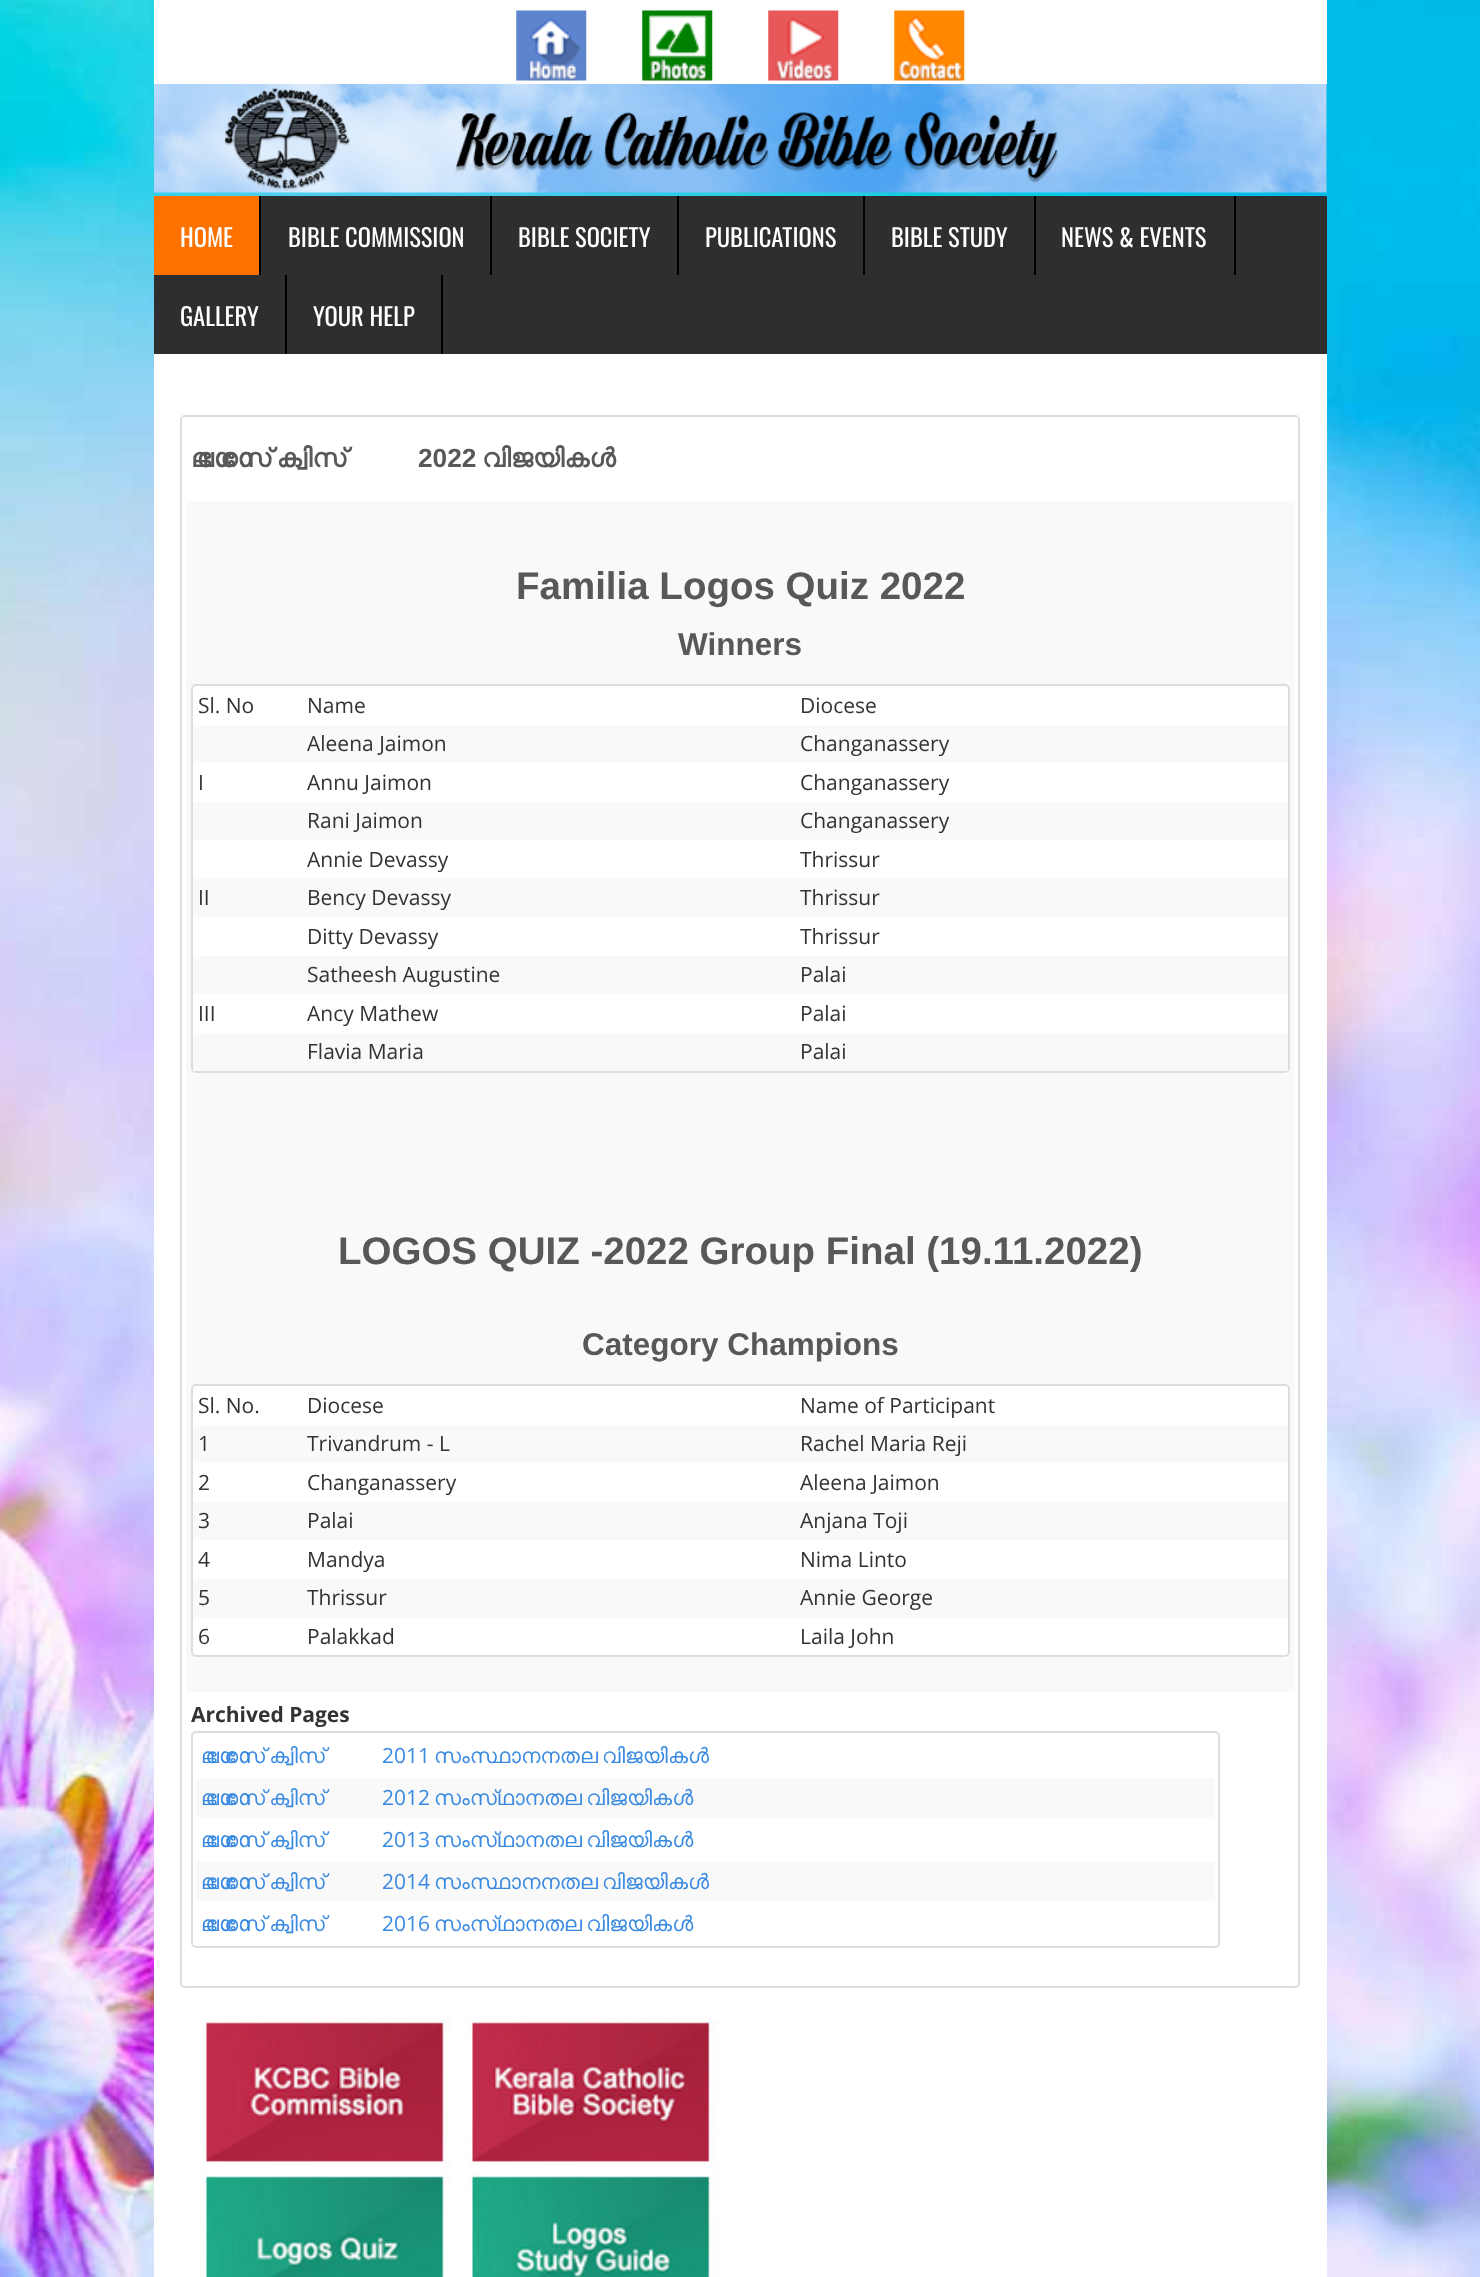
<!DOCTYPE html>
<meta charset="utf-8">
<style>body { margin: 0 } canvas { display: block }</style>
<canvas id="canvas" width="1480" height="2277"></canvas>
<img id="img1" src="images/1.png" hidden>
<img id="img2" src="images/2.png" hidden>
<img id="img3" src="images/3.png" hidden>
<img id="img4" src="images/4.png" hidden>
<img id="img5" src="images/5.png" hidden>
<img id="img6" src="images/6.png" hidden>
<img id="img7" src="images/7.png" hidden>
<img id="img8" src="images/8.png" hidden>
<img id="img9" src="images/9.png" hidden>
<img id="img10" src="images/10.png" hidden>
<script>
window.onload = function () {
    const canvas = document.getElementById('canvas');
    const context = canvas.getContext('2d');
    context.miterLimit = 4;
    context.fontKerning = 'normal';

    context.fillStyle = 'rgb(255, 255, 255)';
    context.fillRect(0, 0, 1480, 2277);
    context.drawImage(document.getElementById('img1'), 0, 0, 1480, 2277);
    context.fillRect(154, 0, 1173, 84);
    context.drawImage(document.getElementById('img2'), 516, 10, 71, 71);
    context.drawImage(document.getElementById('img3'), 642, 10, 71, 71);
    context.drawImage(document.getElementById('img4'), 768, 10, 71, 71);
    context.drawImage(document.getElementById('img5'), 894, 10, 71, 71);
    context.drawImage(document.getElementById('img6'), 154, 84, 1173, 109);
    context.fillRect(154, 354, 1173, 1923);
    context.fillStyle = 'rgb(46, 46, 46)';
    context.fillRect(154, 196, 1173, 158);
    context.fillStyle = 'rgb(252, 113, 0)';
    context.fillRect(154, 196, 105, 79);
    context.fillStyle = 'rgb(0, 0, 0)';
    context.fillRect(259, 196, 2, 79);
    context.fillRect(490, 196, 2, 79);
    context.fillRect(677, 196, 2, 79);
    context.fillRect(863, 196, 2, 79);
    context.fillRect(1034, 196, 2, 79);
    context.fillRect(1234, 196, 2, 79);
    context.fillRect(285, 275, 2, 79);
    context.fillRect(441, 275, 2, 79);
    context.beginPath();
    context.roundRect(181, 416, 1118, 1571, 4);
    context.strokeStyle = 'rgb(221, 221, 221)';
    context.lineWidth = 2;
    context.stroke();
    context.fillStyle = 'rgb(249, 249, 249)';
    context.fillRect(186, 501, 1109, 1191);
    context.fillStyle = 'rgb(255, 255, 255)';
    context.beginPath();
    context.roundRect(192, 685, 1097, 387, 4);
    context.fill();
    context.stroke();
    context.fillStyle = 'rgb(249, 249, 249)';
    context.fillRect(193, 725, 1095, 38);
    context.fillRect(193, 802, 1095, 38);
    context.fillRect(193, 879, 1095, 38);
    context.fillRect(193, 956, 1095, 38);
    context.fillRect(193, 1033, 1095, 38);
    context.fillStyle = 'rgb(255, 255, 255)';
    context.beginPath();
    context.roundRect(192, 1385, 1097, 271, 4);
    context.fill();
    context.stroke();
    context.fillStyle = 'rgb(249, 249, 249)';
    context.fillRect(193, 1425, 1095, 38);
    context.fillRect(193, 1502, 1095, 38);
    context.fillRect(193, 1579, 1095, 38);
    context.beginPath();
    context.roundRect(192, 1732, 1027, 215, 4);
    context.stroke();
    context.fillRect(196, 1778, 1019, 39);
    context.fillRect(196, 1862, 1019, 39);
    context.drawImage(document.getElementById('img7'), 202, 2019, 250, 148);
    context.drawImage(document.getElementById('img8'), 468, 2019, 250, 148);
    context.drawImage(document.getElementById('img9'), 201, 2173, 251, 104);
    context.drawImage(document.getElementById('img10'), 467, 2173, 251, 104);
    context.font = '24.5px Oswald';
    context.fillStyle = 'rgb(255, 255, 255)';
    context.fillText('HOME', 180, 247);
    context.fillText('BIBLE COMMISSION', 288, 247);
    context.fillText('BIBLE SOCIETY', 518, 247);
    context.fillText('PUBLICATIONS', 705, 247);
    context.fillText('BIBLE STUDY', 891, 247);
    context.fillText('NEWS & EVENTS', 1061, 247);
    context.fillText('GALLERY', 180, 326);
    context.fillText('YOUR HELP', 313, 326);
    context.wordSpacing = '-1px';
    context.font = 'bold 26.25px FreeSans';
    context.fillStyle = 'rgb(88, 88, 88)';
    context.fillText('ലോഗോസ് ക്വിസ്', 191, 467);
    context.wordSpacing = '0px';
    context.font = 'bold 26.25px Liberation Sans';
    context.fillText('2022', 418, 467);
    context.font = 'bold 26.25px FreeSans';
    context.fillText('വിജയികൾ', 482, 467);
    context.font = 'bold 38.5px Liberation Sans';
    context.fillText('Familia Logos Quiz 2022', 516, 599);
    context.font = 'bold 31.5px Liberation Sans';
    context.fillText('Winners', 678, 655);
    context.font = '21px Open Sans';
    context.fillStyle = 'rgb(51, 51, 51)';
    context.fillText('Sl. No', 198, 713);
    context.fillText('Name', 307, 713);
    context.fillText('Diocese', 800, 713);
    context.fillText('Aleena Jaimon', 307, 751);
    context.fillText('Changanassery', 800, 751);
    context.fillText('I', 198, 790);
    context.fillText('Annu Jaimon', 307, 790);
    context.fillText('Changanassery', 800, 790);
    context.fillText('Rani Jaimon', 307, 828);
    context.fillText('Changanassery', 800, 828);
    context.fillText('Annie Devassy', 307, 867);
    context.fillText('Thrissur', 800, 867);
    context.fillText('II', 198, 905);
    context.fillText('Bency Devassy', 307, 905);
    context.fillText('Thrissur', 800, 905);
    context.fillText('Ditty Devassy', 307, 944);
    context.fillText('Thrissur', 800, 944);
    context.fillText('Satheesh Augustine', 307, 982);
    context.fillText('Palai', 800, 982);
    context.fillText('III', 198, 1021);
    context.fillText('Ancy Mathew', 307, 1021);
    context.fillText('Palai', 800, 1021);
    context.fillText('Flavia Maria', 307, 1059);
    context.fillText('Palai', 800, 1059);
    context.font = 'bold 38.5px Liberation Sans';
    context.fillStyle = 'rgb(88, 88, 88)';
    context.fillText('LOGOS QUIZ -2022 Group Final (19.11.2022)', 338, 1264);
    context.font = 'bold 31.5px Liberation Sans';
    context.fillText('Category Champions', 582, 1355);
    context.font = '21px Open Sans';
    context.fillStyle = 'rgb(51, 51, 51)';
    context.fillText('Sl. No.', 198, 1413);
    context.fillText('Diocese', 307, 1413);
    context.fillText('Name of Participant', 800, 1413);
    context.fillText('1', 198, 1451);
    context.fillText('Trivandrum - L', 307, 1451);
    context.fillText('Rachel Maria Reji', 800, 1451);
    context.fillText('2', 198, 1490);
    context.fillText('Changanassery', 307, 1490);
    context.fillText('Aleena Jaimon', 800, 1490);
    context.fillText('3', 198, 1528);
    context.fillText('Palai', 307, 1528);
    context.fillText('Anjana Toji', 800, 1528);
    context.fillText('4', 198, 1567);
    context.fillText('Mandya', 307, 1567);
    context.fillText('Nima Linto', 800, 1567);
    context.fillText('5', 198, 1605);
    context.fillText('Thrissur', 307, 1605);
    context.fillText('Annie George', 800, 1605);
    context.fillText('6', 198, 1644);
    context.fillText('Palakkad', 307, 1644);
    context.fillText('Laila John', 800, 1644);
    context.font = 'bold 21px Open Sans';
    context.fillText('Archived Pages', 191, 1722);
    context.wordSpacing = '-1px';
    context.font = '21px FreeSans';
    context.fillStyle = 'rgb(58, 138, 226)';
    context.fillText('ലോഗോസ് ക്വിസ്', 201, 1763);
    context.wordSpacing = '0px';
    context.font = '21px Open Sans';
    context.fillText('2011', 382, 1763);
    context.wordSpacing = '-1px';
    context.font = '21px FreeSans';
    context.fillText('സംസ്ഥാനനതല വിജയികൾ', 434, 1763);
    context.fillText('ലോഗോസ് ക്വിസ്', 201, 1805);
    context.wordSpacing = '0px';
    context.font = '21px Open Sans';
    context.fillText('2012', 382, 1805);
    context.wordSpacing = '-1px';
    context.font = '21px FreeSans';
    context.fillText('സംസ്‌ഥാനതല വിജയികൾ', 434, 1805);
    context.fillText('ലോഗോസ് ക്വിസ്', 201, 1847);
    context.wordSpacing = '0px';
    context.font = '21px Open Sans';
    context.fillText('2013', 382, 1847);
    context.wordSpacing = '-1px';
    context.font = '21px FreeSans';
    context.fillText('സംസ്‌ഥാനതല വിജയികൾ', 434, 1847);
    context.fillText('ലോഗോസ് ക്വിസ്', 201, 1889);
    context.wordSpacing = '0px';
    context.font = '21px Open Sans';
    context.fillText('2014', 382, 1889);
    context.wordSpacing = '-1px';
    context.font = '21px FreeSans';
    context.fillText('സംസ്ഥാനനതല വിജയികൾ', 434, 1889);
    context.fillText('ലോഗോസ് ക്വിസ്', 201, 1931);
    context.wordSpacing = '0px';
    context.font = '21px Open Sans';
    context.fillText('2016', 382, 1931);
    context.wordSpacing = '-1px';
    context.font = '21px FreeSans';
    context.fillText('സംസ്‌ഥാനതല വിജയികൾ', 434, 1931);
};
</script>
